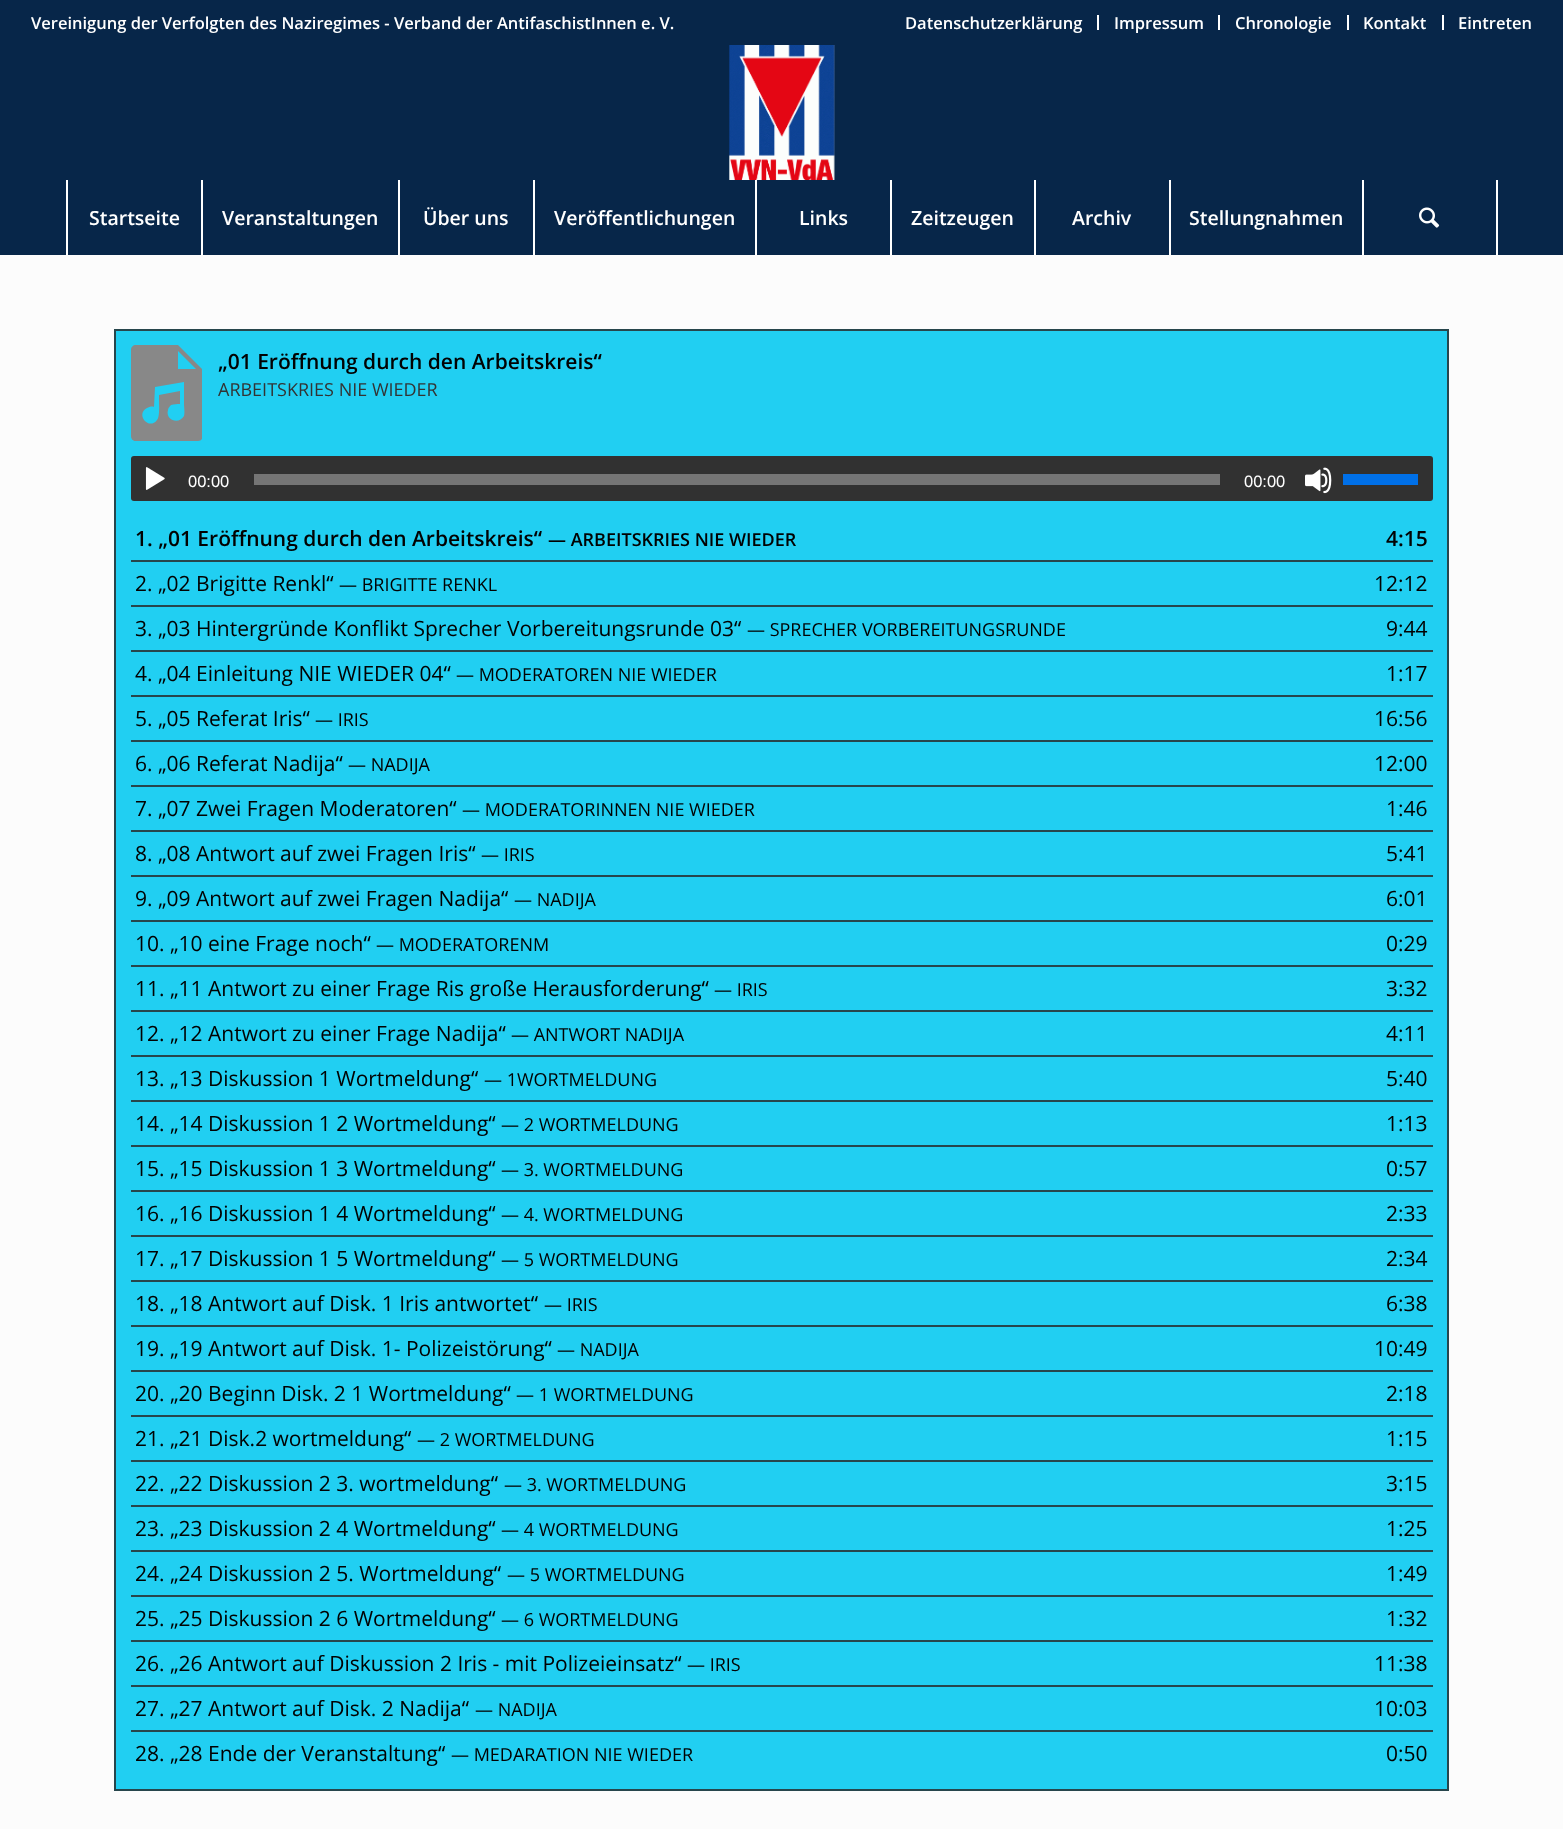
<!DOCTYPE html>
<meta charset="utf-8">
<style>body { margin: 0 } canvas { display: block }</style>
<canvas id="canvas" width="1563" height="1829"></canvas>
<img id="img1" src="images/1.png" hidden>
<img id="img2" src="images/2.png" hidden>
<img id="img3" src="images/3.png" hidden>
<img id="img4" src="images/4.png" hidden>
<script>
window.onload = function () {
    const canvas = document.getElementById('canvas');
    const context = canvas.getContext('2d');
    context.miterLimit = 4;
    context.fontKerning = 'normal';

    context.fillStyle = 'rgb(252, 252, 252)';
    context.fillRect(0, 0, 1563, 1829);
    context.fillStyle = 'rgb(7, 38, 73)';
    context.fillRect(0, 0, 1563, 255);
    context.fillStyle = 'rgb(255, 255, 255)';
    context.fillRect(1097, 15, 2, 15);
    context.fillRect(1218, 15, 2, 15);
    context.fillRect(1347, 15, 2, 15);
    context.fillRect(1442, 15, 2, 15);
    context.drawImage(document.getElementById('img1'), 729, 45, 106, 135);
    context.fillRect(66, 180, 2, 75);
    context.fillRect(201, 180, 2, 75);
    context.fillRect(398, 180, 2, 75);
    context.fillRect(533, 180, 2, 75);
    context.fillRect(755, 180, 2, 75);
    context.fillRect(890, 180, 2, 75);
    context.fillRect(1034, 180, 2, 75);
    context.fillRect(1169, 180, 2, 75);
    context.fillRect(1496, 180, 2, 75);
    context.fillRect(1362, 180, 2, 75);
    context.drawImage(document.getElementById('img2'), 1419, 207, 21, 21);
    context.fillStyle = 'rgb(33, 207, 242)';
    context.beginPath();
    context.rect(115, 330, 1333, 1460);
    context.fill();
    context.strokeStyle = 'rgb(39, 70, 76)';
    context.lineWidth = 2;
    context.stroke();
    context.fillStyle = 'rgb(136, 136, 136)';
    context.beginPath();
    context.moveTo(178, 345);
    context.lineTo(136, 345);
    context.bezierCurveTo(133, 345, 131, 347, 131, 350);
    context.lineTo(131, 436);
    context.bezierCurveTo(131, 439, 133, 441, 136, 441);
    context.lineTo(198, 441);
    context.bezierCurveTo(200, 441, 201, 440, 202, 439);
    context.lineTo(202, 369);
    context.closePath();
    context.moveTo(178, 369);
    context.lineTo(196, 369);
    context.lineTo(178, 351);
    context.closePath();
    context.moveTo(184, 404);
    context.lineTo(184, 382);
    context.lineTo(155, 387);
    context.lineTo(154, 407);
    context.bezierCurveTo(152, 406, 149, 407, 147, 408);
    context.bezierCurveTo(135, 414, 149, 431, 157, 420);
    context.bezierCurveTo(160, 417, 159, 405, 159, 398);
    context.lineTo(159, 395);
    context.lineTo(180, 391);
    context.lineTo(180, 404);
    context.bezierCurveTo(177, 404, 174, 404, 171, 405);
    context.bezierCurveTo(170, 406, 168, 408, 168, 410);
    context.bezierCurveTo(165, 420, 179, 425, 184, 416);
    context.bezierCurveTo(185, 413, 184, 407, 184, 404);
    context.closePath();
    context.fill('evenodd');
    context.fillStyle = 'rgb(49, 49, 49)';
    context.beginPath();
    context.roundRect(131, 456, 1302, 45, 3);
    context.fill();
    context.drawImage(document.getElementById('img3'), 145, 467, 20, 23);
    context.fillStyle = 'rgb(117, 117, 117)';
    context.fillRect(254, 474, 966, 11);
    context.drawImage(document.getElementById('img4'), 1305, 467, 27, 27);
    context.fillStyle = 'rgb(0, 112, 232)';
    context.fillRect(1343, 474, 75, 11);
    context.fillStyle = 'rgb(39, 70, 76)';
    context.fillRect(131, 560, 1302, 2);
    context.fillRect(131, 605, 1302, 2);
    context.fillRect(131, 650, 1302, 2);
    context.fillRect(131, 695, 1302, 2);
    context.fillRect(131, 740, 1302, 2);
    context.fillRect(131, 785, 1302, 2);
    context.fillRect(131, 830, 1302, 2);
    context.fillRect(131, 875, 1302, 2);
    context.fillRect(131, 920, 1302, 2);
    context.fillRect(131, 965, 1302, 2);
    context.fillRect(131, 1010, 1302, 2);
    context.fillRect(131, 1055, 1302, 2);
    context.fillRect(131, 1100, 1302, 2);
    context.fillRect(131, 1145, 1302, 2);
    context.fillRect(131, 1190, 1302, 2);
    context.fillRect(131, 1235, 1302, 2);
    context.fillRect(131, 1280, 1302, 2);
    context.fillRect(131, 1325, 1302, 2);
    context.fillRect(131, 1370, 1302, 2);
    context.fillRect(131, 1415, 1302, 2);
    context.fillRect(131, 1460, 1302, 2);
    context.fillRect(131, 1505, 1302, 2);
    context.fillRect(131, 1550, 1302, 2);
    context.fillRect(131, 1595, 1302, 2);
    context.fillRect(131, 1640, 1302, 2);
    context.fillRect(131, 1685, 1302, 2);
    context.fillRect(131, 1730, 1302, 2);
    context.font = '600 16.5px Open Sans';
    context.fillStyle = 'rgb(255, 255, 255)';
    context.fillText('Vereinigung der Verfolgten des Naziregimes - Verband der AntifaschistInnen e. V.', 31, 29);
    context.fillText('Datenschutzerklärung', 905, 29);
    context.fillText('Impressum', 1114, 29);
    context.fillText('Chronologie', 1235, 29);
    context.fillText('Kontakt', 1363, 29);
    context.fillText('Eintreten', 1458, 29);
    context.font = '600 19.5px Open Sans';
    context.fillText('Startseite', 89, 225);
    context.fillText('Veranstaltungen', 222, 225);
    context.fillText('Über uns', 423, 225);
    context.fillText('Veröffentlichungen', 554, 225);
    context.fillText('Links', 799, 225);
    context.fillText('Zeitzeugen', 911, 225);
    context.fillText('Archiv', 1072, 225);
    context.fillText('Stellungnahmen', 1189, 225);
    context.font = '600 21px Open Sans';
    context.fillStyle = 'rgb(2, 2, 2)';
    context.fillText('„01 Eröffnung durch den Arbeitskreis“', 218, 369);
    context.font = '18px Open Sans';
    context.fillStyle = 'rgb(51, 51, 51)';
    context.fillText('ARBEITSKRIES NIE WIEDER', 218, 396);
    context.font = '16.5px Liberation Sans';
    context.fillStyle = 'rgb(255, 255, 255)';
    context.fillText('00:00', 188, 487);
    context.fillText('00:00', 1244, 487);
    context.font = '600 21px Open Sans';
    context.fillStyle = 'rgb(2, 2, 2)';
    context.fillText('1. „01 Eröffnung durch den Arbeitskreis“', 135, 546);
    context.font = '600 18px Open Sans';
    context.fillText('— ARBEITSKRIES NIE WIEDER', 548, 546);
    context.font = '600 21px Open Sans';
    context.fillText('4:15', 1386, 546);
    context.font = '21px Open Sans';
    context.fillText('2. „02 Brigitte Renkl“', 135, 591);
    context.font = '18px Open Sans';
    context.fillText('— BRIGITTE RENKL', 339, 591);
    context.font = '21px Open Sans';
    context.fillText('12:12', 1374, 591);
    context.fillText('3. „03 Hintergründe Konflikt Sprecher Vorbereitungsrunde 03“', 135, 636);
    context.font = '18px Open Sans';
    context.fillText('— SPRECHER VORBEREITUNGSRUNDE', 747, 636);
    context.font = '21px Open Sans';
    context.fillText('9:44', 1386, 636);
    context.fillText('4. „04 Einleitung NIE WIEDER 04“', 135, 681);
    context.font = '18px Open Sans';
    context.fillText('— MODERATOREN NIE WIEDER', 456, 681);
    context.font = '21px Open Sans';
    context.fillText('1:17', 1386, 681);
    context.fillText('5. „05 Referat Iris“', 135, 726);
    context.font = '18px Open Sans';
    context.fillText('— IRIS', 315, 726);
    context.font = '21px Open Sans';
    context.fillText('16:56', 1374, 726);
    context.fillText('6. „06 Referat Nadija“', 135, 771);
    context.font = '18px Open Sans';
    context.fillText('— NADIJA', 348, 771);
    context.font = '21px Open Sans';
    context.fillText('12:00', 1374, 771);
    context.fillText('7. „07 Zwei Fragen Moderatoren“', 135, 816);
    context.font = '18px Open Sans';
    context.fillText('— MODERATORINNEN NIE WIEDER', 462, 816);
    context.font = '21px Open Sans';
    context.fillText('1:46', 1386, 816);
    context.fillText('8. „08 Antwort auf zwei Fragen Iris“', 135, 861);
    context.font = '18px Open Sans';
    context.fillText('— IRIS', 481, 861);
    context.font = '21px Open Sans';
    context.fillText('5:41', 1386, 861);
    context.fillText('9. „09 Antwort auf zwei Fragen Nadija“', 135, 906);
    context.font = '18px Open Sans';
    context.fillText('— NADIJA', 514, 906);
    context.font = '21px Open Sans';
    context.fillText('6:01', 1386, 906);
    context.fillText('10. „10 eine Frage noch“', 135, 951);
    context.font = '18px Open Sans';
    context.fillText('— MODERATORENM', 376, 951);
    context.font = '21px Open Sans';
    context.fillText('0:29', 1386, 951);
    context.fillText('11. „11 Antwort zu einer Frage Ris große Herausforderung“', 135, 996);
    context.font = '18px Open Sans';
    context.fillText('— IRIS', 714, 996);
    context.font = '21px Open Sans';
    context.fillText('3:32', 1386, 996);
    context.fillText('12. „12 Antwort zu einer Frage Nadija“', 135, 1041);
    context.font = '18px Open Sans';
    context.fillText('— ANTWORT NADIJA', 511, 1041);
    context.font = '21px Open Sans';
    context.fillText('4:11', 1386, 1041);
    context.fillText('13. „13 Diskussion 1 Wortmeldung“', 135, 1086);
    context.font = '18px Open Sans';
    context.fillText('— 1WORTMELDUNG', 484, 1086);
    context.font = '21px Open Sans';
    context.fillText('5:40', 1386, 1086);
    context.fillText('14. „14 Diskussion 1 2 Wortmeldung“', 135, 1131);
    context.font = '18px Open Sans';
    context.fillText('— 2 WORTMELDUNG', 501, 1131);
    context.font = '21px Open Sans';
    context.fillText('1:13', 1386, 1131);
    context.fillText('15. „15 Diskussion 1 3 Wortmeldung“', 135, 1176);
    context.font = '18px Open Sans';
    context.fillText('— 3. WORTMELDUNG', 501, 1176);
    context.font = '21px Open Sans';
    context.fillText('0:57', 1386, 1176);
    context.fillText('16. „16 Diskussion 1 4 Wortmeldung“', 135, 1221);
    context.font = '18px Open Sans';
    context.fillText('— 4. WORTMELDUNG', 501, 1221);
    context.font = '21px Open Sans';
    context.fillText('2:33', 1386, 1221);
    context.fillText('17. „17 Diskussion 1 5 Wortmeldung“', 135, 1266);
    context.font = '18px Open Sans';
    context.fillText('— 5 WORTMELDUNG', 501, 1266);
    context.font = '21px Open Sans';
    context.fillText('2:34', 1386, 1266);
    context.fillText('18. „18 Antwort auf Disk. 1 Iris antwortet“', 135, 1311);
    context.font = '18px Open Sans';
    context.fillText('— IRIS', 544, 1311);
    context.font = '21px Open Sans';
    context.fillText('6:38', 1386, 1311);
    context.fillText('19. „19 Antwort auf Disk. 1- Polizeistörung“', 135, 1356);
    context.font = '18px Open Sans';
    context.fillText('— NADIJA', 557, 1356);
    context.font = '21px Open Sans';
    context.fillText('10:49', 1374, 1356);
    context.fillText('20. „20 Beginn Disk. 2 1 Wortmeldung“', 135, 1401);
    context.font = '18px Open Sans';
    context.fillText('— 1 WORTMELDUNG', 516, 1401);
    context.font = '21px Open Sans';
    context.fillText('2:18', 1386, 1401);
    context.fillText('21. „21 Disk.2 wortmeldung“', 135, 1446);
    context.font = '18px Open Sans';
    context.fillText('— 2 WORTMELDUNG', 417, 1446);
    context.font = '21px Open Sans';
    context.fillText('1:15', 1386, 1446);
    context.fillText('22. „22 Diskussion 2 3. wortmeldung“', 135, 1491);
    context.font = '18px Open Sans';
    context.fillText('— 3. WORTMELDUNG', 504, 1491);
    context.font = '21px Open Sans';
    context.fillText('3:15', 1386, 1491);
    context.fillText('23. „23 Diskussion 2 4 Wortmeldung“', 135, 1536);
    context.font = '18px Open Sans';
    context.fillText('— 4 WORTMELDUNG', 501, 1536);
    context.font = '21px Open Sans';
    context.fillText('1:25', 1386, 1536);
    context.fillText('24. „24 Diskussion 2 5. Wortmeldung“', 135, 1581);
    context.font = '18px Open Sans';
    context.fillText('— 5 WORTMELDUNG', 507, 1581);
    context.font = '21px Open Sans';
    context.fillText('1:49', 1386, 1581);
    context.fillText('25. „25 Diskussion 2 6 Wortmeldung“', 135, 1626);
    context.font = '18px Open Sans';
    context.fillText('— 6 WORTMELDUNG', 501, 1626);
    context.font = '21px Open Sans';
    context.fillText('1:32', 1386, 1626);
    context.fillText('26. „26 Antwort auf Diskussion 2 Iris - mit Polizeieinsatz“', 135, 1671);
    context.font = '18px Open Sans';
    context.fillText('— IRIS', 687, 1671);
    context.font = '21px Open Sans';
    context.fillText('11:38', 1374, 1671);
    context.fillText('27. „27 Antwort auf Disk. 2 Nadija“', 135, 1716);
    context.font = '18px Open Sans';
    context.fillText('— NADIJA', 475, 1716);
    context.font = '21px Open Sans';
    context.fillText('10:03', 1374, 1716);
    context.fillText('28. „28 Ende der Veranstaltung“', 135, 1761);
    context.font = '18px Open Sans';
    context.fillText('— MEDARATION NIE WIEDER', 451, 1761);
    context.font = '21px Open Sans';
    context.fillText('0:50', 1386, 1761);
};
</script>
